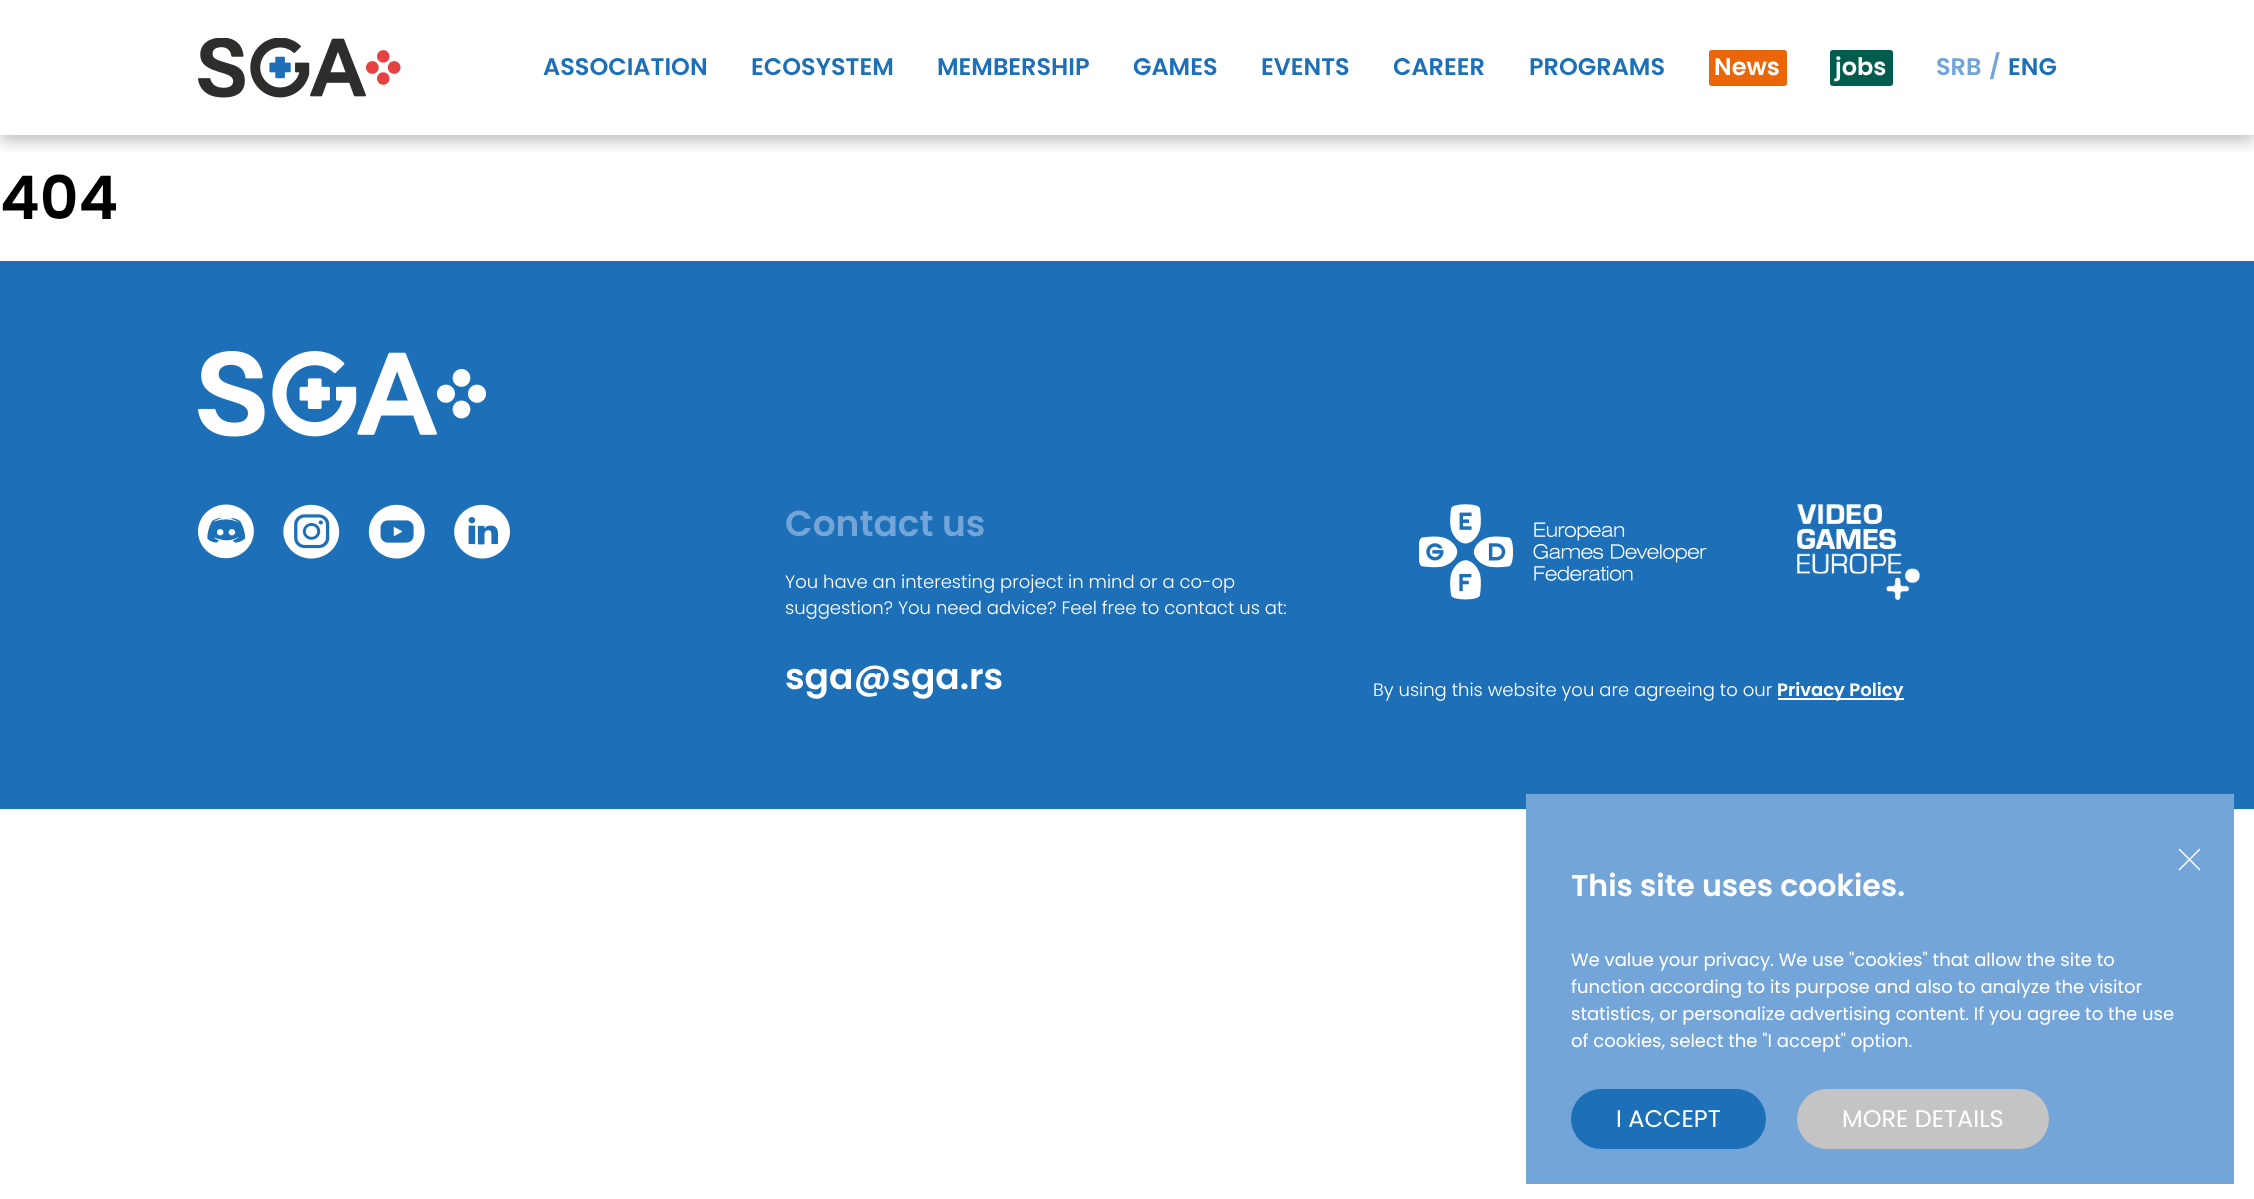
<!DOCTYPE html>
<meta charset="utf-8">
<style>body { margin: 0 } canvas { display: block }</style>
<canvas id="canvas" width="2254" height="1199"></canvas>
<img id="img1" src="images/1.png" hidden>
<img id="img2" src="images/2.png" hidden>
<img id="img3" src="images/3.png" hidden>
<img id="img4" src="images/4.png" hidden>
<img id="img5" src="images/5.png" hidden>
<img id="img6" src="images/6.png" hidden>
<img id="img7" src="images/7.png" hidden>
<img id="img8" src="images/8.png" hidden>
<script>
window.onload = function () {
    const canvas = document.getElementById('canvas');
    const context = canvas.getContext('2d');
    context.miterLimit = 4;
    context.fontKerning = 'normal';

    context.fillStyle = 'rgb(255, 255, 255)';
    context.fillRect(0, 0, 2254, 1199);
    context.save();
    context.beginPath();
    context.rect(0, 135, 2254, 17);
    context.clip();
    context.fillStyle = 'rgba(0, 0, 0, 0.25)';
    context.filter = 'blur(8px)';
    context.beginPath();
    context.rect(0, 6, 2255, 135);
    context.fill();
    context.filter = 'none';
    context.restore();
    context.drawImage(document.getElementById('img1'), 198, 38, 203, 60);
    context.fillStyle = 'rgb(235, 102, 8)';
    context.beginPath();
    context.roundRect(1709, 50, 78, 36, 3);
    context.fill();
    context.fillStyle = 'rgb(0, 92, 77)';
    context.beginPath();
    context.roundRect(1830, 50, 63, 36, 3);
    context.fill();
    context.fillStyle = 'rgb(29, 112, 183)';
    context.fillRect(0, 261, 2254, 548);
    context.drawImage(document.getElementById('img2'), 198, 351, 288, 86);
    context.drawImage(document.getElementById('img3'), 198, 504, 56, 55);
    context.drawImage(document.getElementById('img4'), 283, 504, 57, 55);
    context.drawImage(document.getElementById('img5'), 368, 504, 57, 55);
    context.drawImage(document.getElementById('img6'), 454, 504, 56, 55);
    context.drawImage(document.getElementById('img7'), 1419, 504, 288, 96);
    context.drawImage(document.getElementById('img8'), 1797, 504, 123, 96);
    context.fillStyle = 'rgb(255, 255, 255)';
    context.fillRect(1778, 698, 126, 2);
    context.fillStyle = 'rgb(115, 165, 217)';
    context.fillRect(1526, 794, 708, 390);
    context.beginPath();
    context.moveTo(2179, 870);
    context.lineTo(2200, 849);
    context.moveTo(2179, 849);
    context.lineTo(2200, 870);
    context.strokeStyle = 'rgb(255, 255, 255)';
    context.lineWidth = 1.5;
    context.stroke();
    context.fillStyle = 'rgb(29, 112, 183)';
    context.beginPath();
    context.roundRect(1571, 1089, 195, 60, 30);
    context.fill();
    context.fillStyle = 'rgb(196, 196, 196)';
    context.beginPath();
    context.roundRect(1797, 1089, 252, 60, 30);
    context.fill();
    context.font = '600 24px Poppins';
    context.fillStyle = 'rgb(29, 112, 183)';
    context.fillText('ASSOCIATION', 543, 75);
    context.fillText('ECOSYSTEM', 751, 75);
    context.fillText('MEMBERSHIP', 937, 75);
    context.fillText('GAMES', 1133, 75);
    context.fillText('EVENTS', 1261, 75);
    context.fillText('CAREER', 1393, 75);
    context.fillText('PROGRAMS', 1529, 75);
    context.fillStyle = 'rgb(255, 255, 255)';
    context.fillText('News', 1714, 75);
    context.fillText('jobs', 1835, 75);
    context.fillStyle = 'rgb(115, 165, 217)';
    context.fillText('SRB', 1936, 75);
    context.fillText('/', 1989, 75);
    context.fillStyle = 'rgb(29, 112, 183)';
    context.fillText('ENG', 2008, 75);
    context.font = '600 60px Poppins';
    context.fillStyle = 'rgb(0, 0, 0)';
    context.fillText('404', 0, 219);
    context.font = '600 36px Poppins';
    context.fillStyle = 'rgb(115, 165, 217)';
    context.fillText('Contact us', 785, 536);
    context.font = '300 18px Poppins';
    context.fillStyle = 'rgb(255, 255, 255)';
    context.fillText('You have an interesting project in mind or a co-op', 785, 588);
    context.fillText('suggestion? You need advice? Feel free to contact us at:', 785, 614);
    context.font = '600 36px Poppins';
    context.fillText('sga@sga.rs', 785, 689);
    context.font = '300 18px Poppins';
    context.fillText('By using this website you are agreeing to our', 1373, 696);
    context.font = '600 18px Poppins';
    context.fillText('Privacy Policy', 1777, 696);
    context.font = '600 30px Poppins';
    context.fillText('This site uses cookies.', 1571, 896);
    context.font = '18px Poppins';
    context.fillText('We value your privacy. We use "cookies" that allow the site to', 1571, 966);
    context.fillText('function according to its purpose and also to analyze the visitor', 1571, 993);
    context.fillText('statistics, or personalize advertising content. If you agree to the use', 1571, 1020);
    context.fillText('of cookies, select the "I accept" option.', 1571, 1047);
    context.font = '24px Poppins';
    context.fillText('I ACCEPT', 1616, 1127);
    context.fillText('MORE DETAILS', 1842, 1127);
};
</script>
